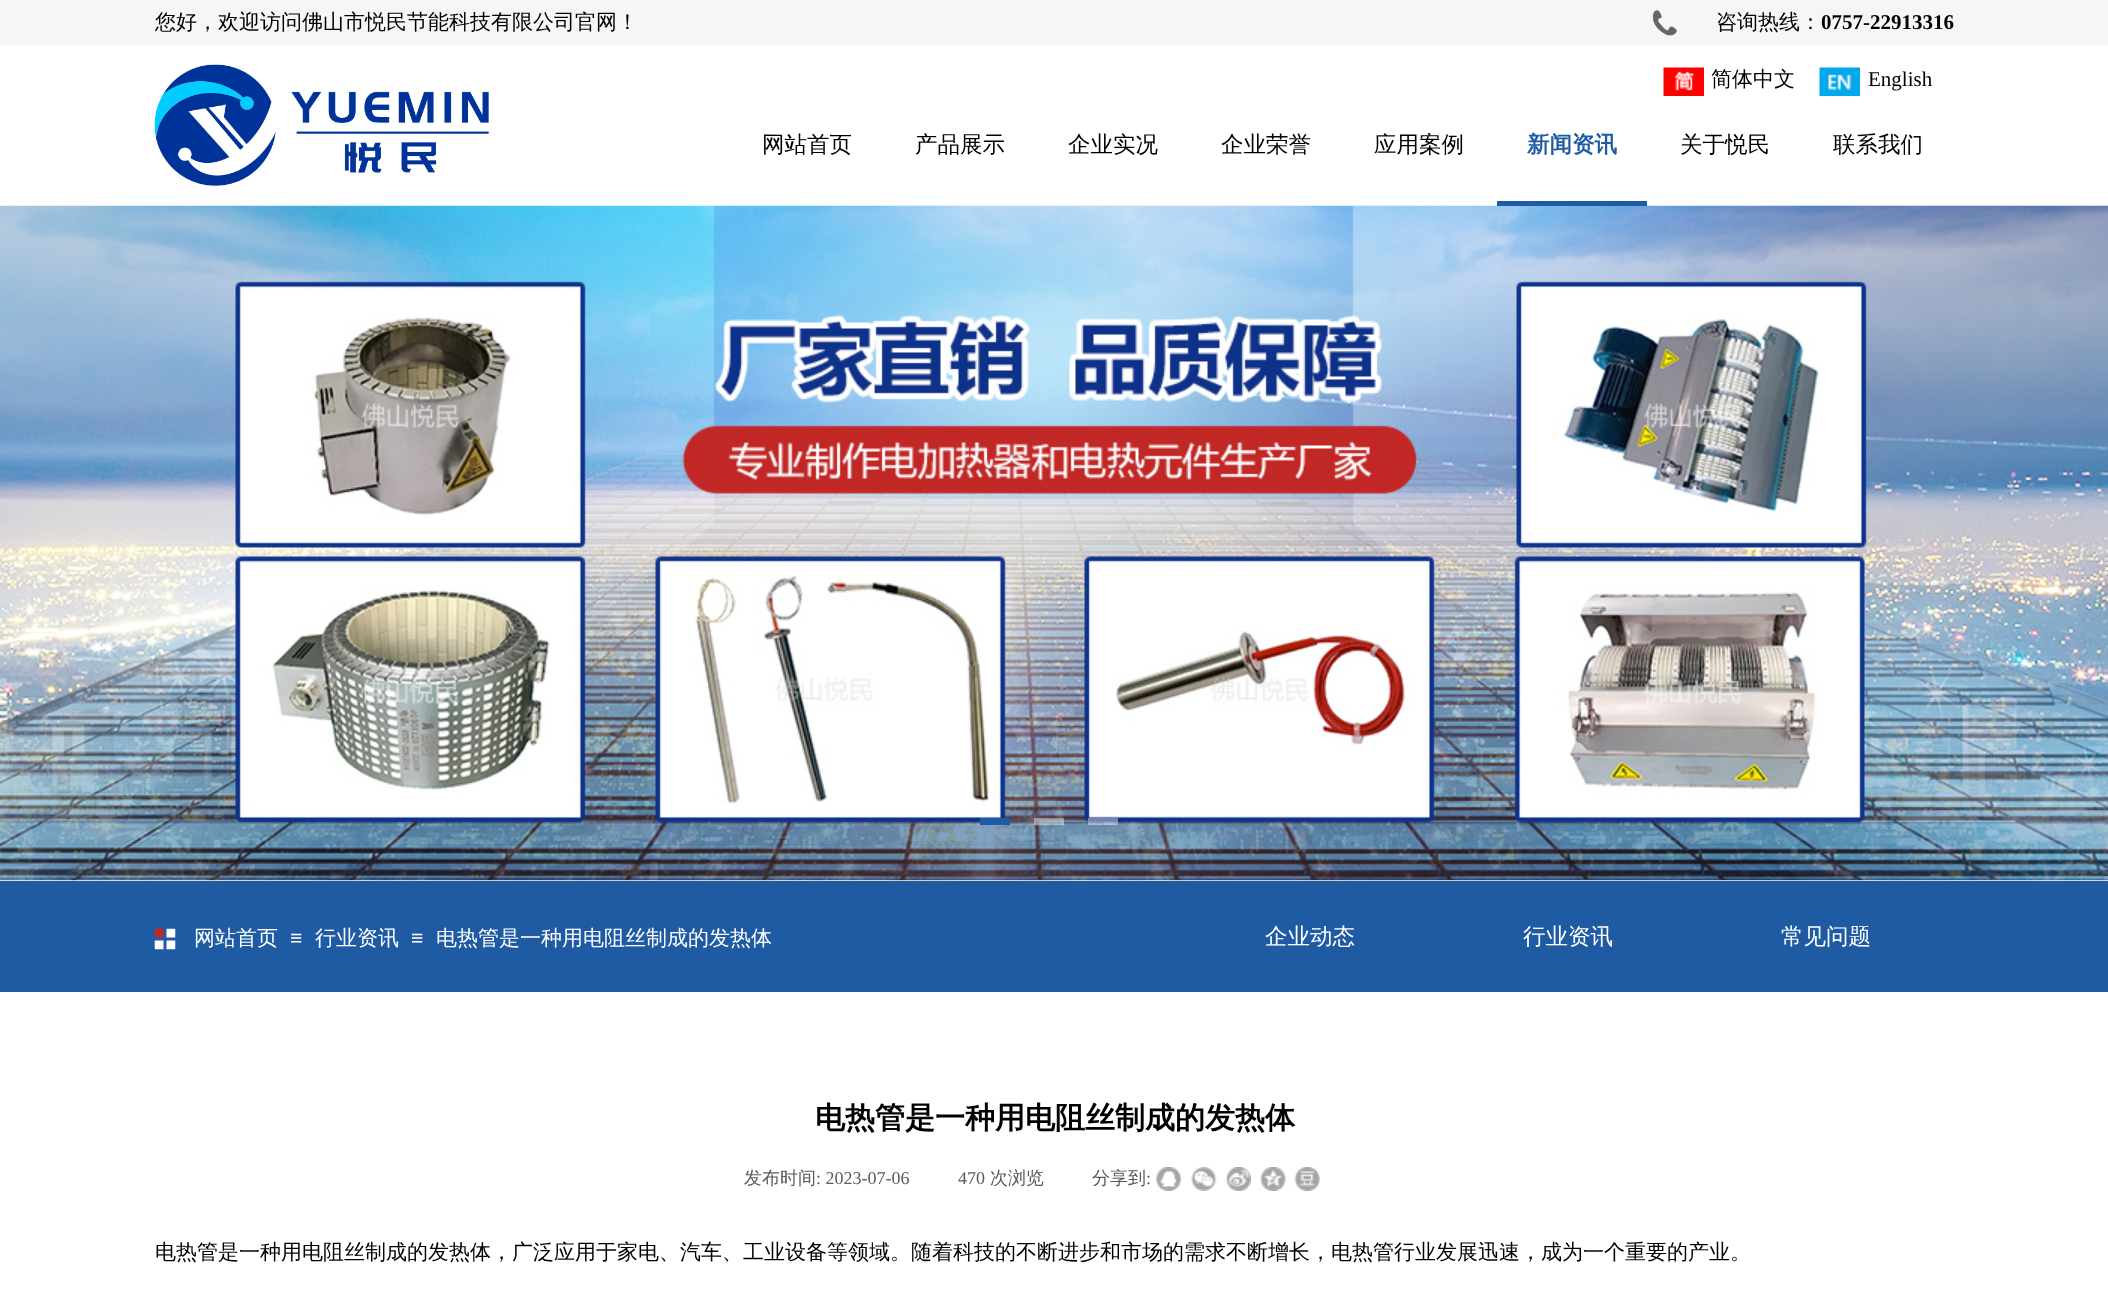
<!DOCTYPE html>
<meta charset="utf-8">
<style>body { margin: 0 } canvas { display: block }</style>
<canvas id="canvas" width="2108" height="1311"></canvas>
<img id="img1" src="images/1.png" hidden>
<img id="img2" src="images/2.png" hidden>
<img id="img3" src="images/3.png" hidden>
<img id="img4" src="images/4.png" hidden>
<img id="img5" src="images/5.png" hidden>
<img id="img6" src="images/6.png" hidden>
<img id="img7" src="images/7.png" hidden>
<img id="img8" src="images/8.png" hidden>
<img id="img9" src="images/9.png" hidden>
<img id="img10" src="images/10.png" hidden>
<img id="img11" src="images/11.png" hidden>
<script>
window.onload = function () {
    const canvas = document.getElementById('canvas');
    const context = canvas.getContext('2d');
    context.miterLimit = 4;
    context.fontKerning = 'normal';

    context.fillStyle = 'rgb(255, 255, 255)';
    context.fillRect(0, 0, 2108, 1311);
    context.fillStyle = 'rgb(246, 246, 246)';
    context.fillRect(0, 0, 2108, 45);
    context.drawImage(document.getElementById('img1'), 1652, 10, 25, 26);
    context.drawImage(document.getElementById('img2'), 154, 64, 335, 122);
    context.drawImage(document.getElementById('img3'), 1663, 67, 41, 29);
    context.drawImage(document.getElementById('img4'), 1819, 67, 41, 29);
    context.drawImage(document.getElementById('img5'), 0, 205, 2108, 676);
    context.fillStyle = 'rgb(31, 91, 163)';
    context.fillRect(1497, 201, 150, 5);
    context.fillRect(980, 818, 30, 7);
    context.fillStyle = 'rgba(255, 255, 255, 0.4)';
    context.fillRect(1034, 818, 30, 7);
    context.fillRect(1088, 818, 30, 7);
    context.fillStyle = 'rgb(31, 91, 163)';
    context.fillRect(0, 881, 2108, 111);
    context.drawImage(document.getElementById('img6'), 154, 928, 22, 22);
    context.drawImage(document.getElementById('img7'), 1156, 1167, 26, 24);
    context.drawImage(document.getElementById('img8'), 1191, 1167, 26, 24);
    context.drawImage(document.getElementById('img9'), 1225, 1167, 26, 24);
    context.drawImage(document.getElementById('img10'), 1260, 1167, 26, 24);
    context.drawImage(document.getElementById('img11'), 1294, 1167, 26, 24);
    context.font = '500 21px WenQuanYi Zen Hei';
    context.fillStyle = 'rgb(0, 0, 0)';
    context.fillText('您好，欢迎访问佛山市悦民节能科技有限公司官网！', 155, 29);
    context.fillText('咨询热线：', 1716, 29);
    context.font = 'bold 21px Liberation Serif';
    context.fillText('0757-22913316', 1821, 29);
    context.font = '500 21px WenQuanYi Zen Hei';
    context.fillText('简体中文', 1711, 86);
    context.font = '21px Liberation Serif';
    context.fillText('English', 1868, 86);
    context.font = '500 22.5px WenQuanYi Zen Hei';
    context.fillText('网站首页', 762, 152);
    context.fillText('产品展示', 915, 152);
    context.fillText('企业实况', 1068, 152);
    context.fillText('企业荣誉', 1221, 152);
    context.fillText('应用案例', 1374, 152);
    context.font = 'bold 22.5px WenQuanYi Zen Hei';
    context.fillStyle = 'rgb(31, 91, 163)';
    context.fillText('新闻资讯', 1527, 152);
    context.font = '500 22.5px WenQuanYi Zen Hei';
    context.fillStyle = 'rgb(0, 0, 0)';
    context.fillText('关于悦民', 1680, 152);
    context.fillText('联系我们', 1833, 152);
    context.font = '500 21px WenQuanYi Zen Hei';
    context.fillStyle = 'rgb(255, 255, 255)';
    context.fillText('网站首页', 194, 945);
    context.font = '21px Liberation Sans';
    context.fillText('≡', 290, 945);
    context.font = '500 21px WenQuanYi Zen Hei';
    context.fillText('行业资讯', 315, 945);
    context.font = '21px Liberation Sans';
    context.fillText('≡', 411, 945);
    context.font = '500 21px WenQuanYi Zen Hei';
    context.fillText('电热管是一种用电阻丝制成的发热体', 436, 945);
    context.font = '500 22.5px WenQuanYi Zen Hei';
    context.fillText('企业动态', 1265, 944);
    context.fillText('行业资讯', 1523, 944);
    context.fillText('常见问题', 1781, 944);
    context.font = 'bold 30px WenQuanYi Zen Hei';
    context.fillStyle = 'rgb(0, 0, 0)';
    context.fillText('电热管是一种用电阻丝制成的发热体', 815, 1128);
    context.font = '500 18px WenQuanYi Zen Hei';
    context.fillStyle = 'rgb(90, 90, 90)';
    context.fillText('发布时间', 744, 1184);
    context.font = '18px Liberation Serif';
    context.fillText(': 2023-07-06', 816, 1184);
    context.fillText('470', 958, 1184);
    context.font = '500 18px WenQuanYi Zen Hei';
    context.fillText('次浏览', 990, 1184);
    context.fillText('分享到', 1092, 1184);
    context.font = '18px Liberation Serif';
    context.fillText(':', 1146, 1184);
    context.font = '500 21px WenQuanYi Zen Hei';
    context.fillStyle = 'rgb(0, 0, 0)';
    context.fillText('电热管是一种用电阻丝制成的发热体，广泛应用于家电、汽车、工业设备等领域。随着科技的不断进步和市场的需求不断增长，电热管行业发展迅速，成为一个重要的产业。', 155, 1259);
};
</script>
